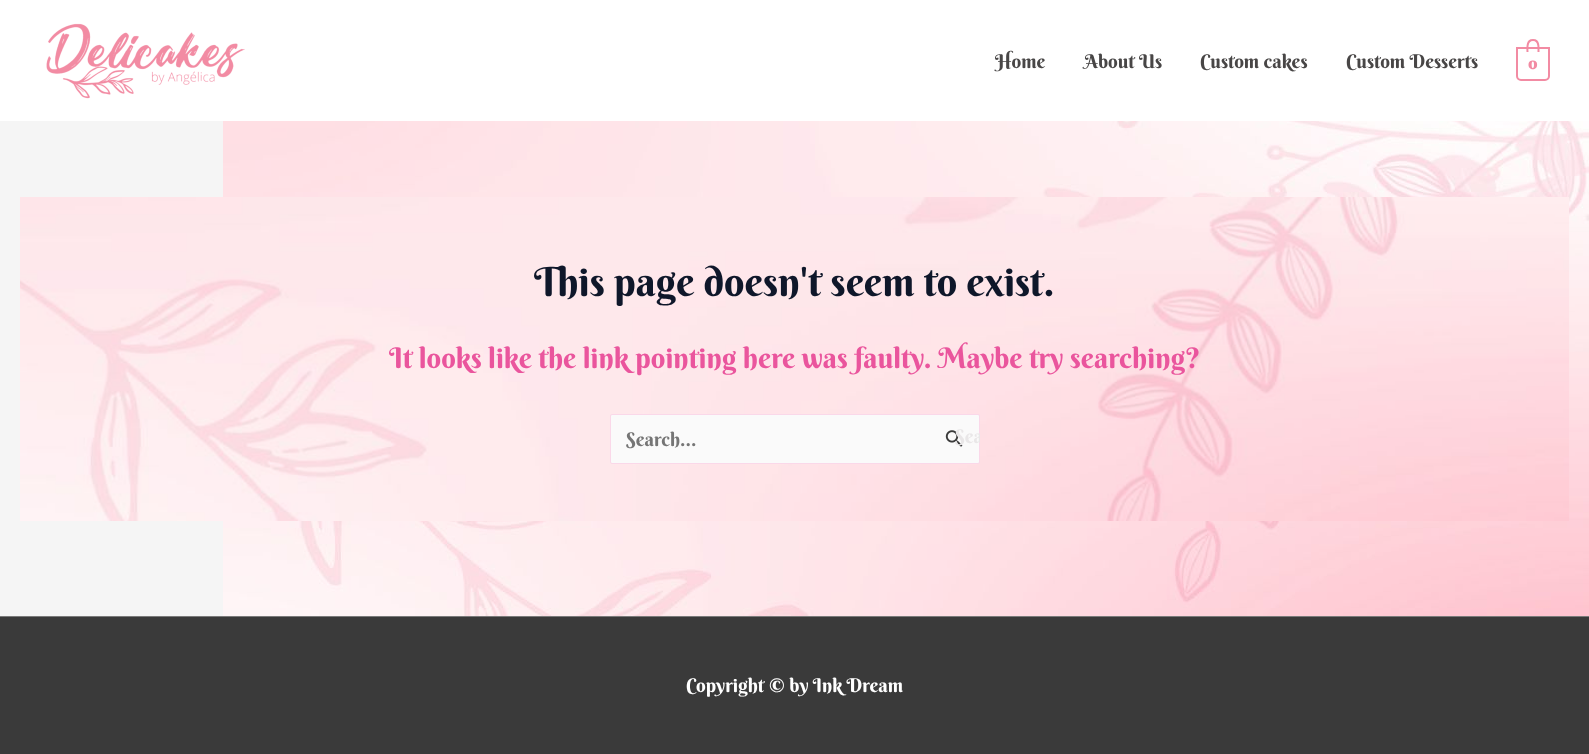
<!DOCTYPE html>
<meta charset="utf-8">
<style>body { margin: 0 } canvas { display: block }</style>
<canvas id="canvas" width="1589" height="754"></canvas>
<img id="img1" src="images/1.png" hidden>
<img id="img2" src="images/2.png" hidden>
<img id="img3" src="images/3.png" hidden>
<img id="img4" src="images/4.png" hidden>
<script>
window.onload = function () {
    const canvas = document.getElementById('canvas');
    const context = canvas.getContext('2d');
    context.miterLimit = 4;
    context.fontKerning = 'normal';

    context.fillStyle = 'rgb(245, 245, 245)';
    context.fillRect(0, 0, 1589, 754);
    context.drawImage(document.getElementById('img1'), 223, 121, 1366, 495);
    context.fillStyle = 'rgb(255, 255, 255)';
    context.fillRect(0, 0, 1589, 121);
    context.drawImage(document.getElementById('img2'), 46, 23, 199, 76);
    context.beginPath();
    context.roundRect(1517, 48, 32, 32, [0, 0, 4, 4]);
    context.strokeStyle = 'rgb(242, 139, 163)';
    context.lineWidth = 2;
    context.stroke();
    context.fillStyle = 'rgb(242, 139, 163)';
    context.beginPath();
    context.moveTo(1533, 39);
    context.bezierCurveTo(1540.5, 39, 1539.5, 47, 1539.5, 52);
    context.lineTo(1526.5, 52);
    context.bezierCurveTo(1526.5, 47, 1525.5, 39, 1533, 39);
    context.closePath();
    context.moveTo(1533, 41);
    context.bezierCurveTo(1538.5, 41, 1537.5, 48.5, 1537.5, 52);
    context.lineTo(1528.5, 52);
    context.bezierCurveTo(1528.5, 48.5, 1527.5, 41, 1533, 41);
    context.closePath();
    context.fill('evenodd');
    context.drawImage(document.getElementById('img3'), 20, 197, 1549, 324);
    context.fillStyle = 'rgb(250, 250, 250)';
    context.beginPath();
    context.roundRect(610.5, 414.5, 369, 49, 1.5);
    context.fill();
    context.strokeStyle = 'rgb(250, 216, 233)';
    context.lineWidth = 1;
    context.stroke();
    context.drawImage(document.getElementById('img4'), 945, 430, 18, 17);
    context.fillStyle = 'rgb(122, 122, 122)';
    context.fillRect(0, 616, 1589, 1);
    context.fillStyle = 'rgb(58, 58, 58)';
    context.fillRect(0, 617, 1589, 137);
    context.font = '19px Berkshire Swash';
    context.fillStyle = 'rgb(72, 70, 70)';
    context.fillText('Home', 995, 68);
    context.fillText('About Us', 1084, 68);
    context.fillText('Custom cakes', 1200, 68);
    context.fillText('Custom Desserts', 1346, 68);
    context.font = 'bold 16px Berkshire Swash';
    context.fillStyle = 'rgb(242, 139, 163)';
    context.fillText('0', 1528, 69);
    context.font = '40px Berkshire Swash';
    context.fillStyle = 'rgb(15, 23, 42)';
    context.fillText('This page doesn\'t seem to exist.', 534, 296);
    context.font = '28.5px Berkshire Swash';
    context.fillStyle = 'rgb(234, 85, 157)';
    context.fillText('It looks like the link pointing here was faulty. Maybe try searching?', 389, 368);
    context.save();
    context.beginPath();
    context.rect(626, 427, 304, 24);
    context.clip();
    context.font = '19px Berkshire Swash';
    context.fillStyle = 'rgb(117, 117, 117)';
    context.fillText('Search...', 626, 446);
    context.restore();
    context.save();
    context.beginPath();
    context.roundRect(935, 414, 45, 45, 2);
    context.clip();
    context.font = '19px Berkshire Swash';
    context.fillStyle = 'rgb(233, 231, 232)';
    context.fillText('Sea', 955, 443);
    context.restore();
    context.font = '19px Berkshire Swash';
    context.fillStyle = 'rgb(255, 255, 255)';
    context.fillText('Copyright © by Ink Dream', 686, 692);
};
</script>
